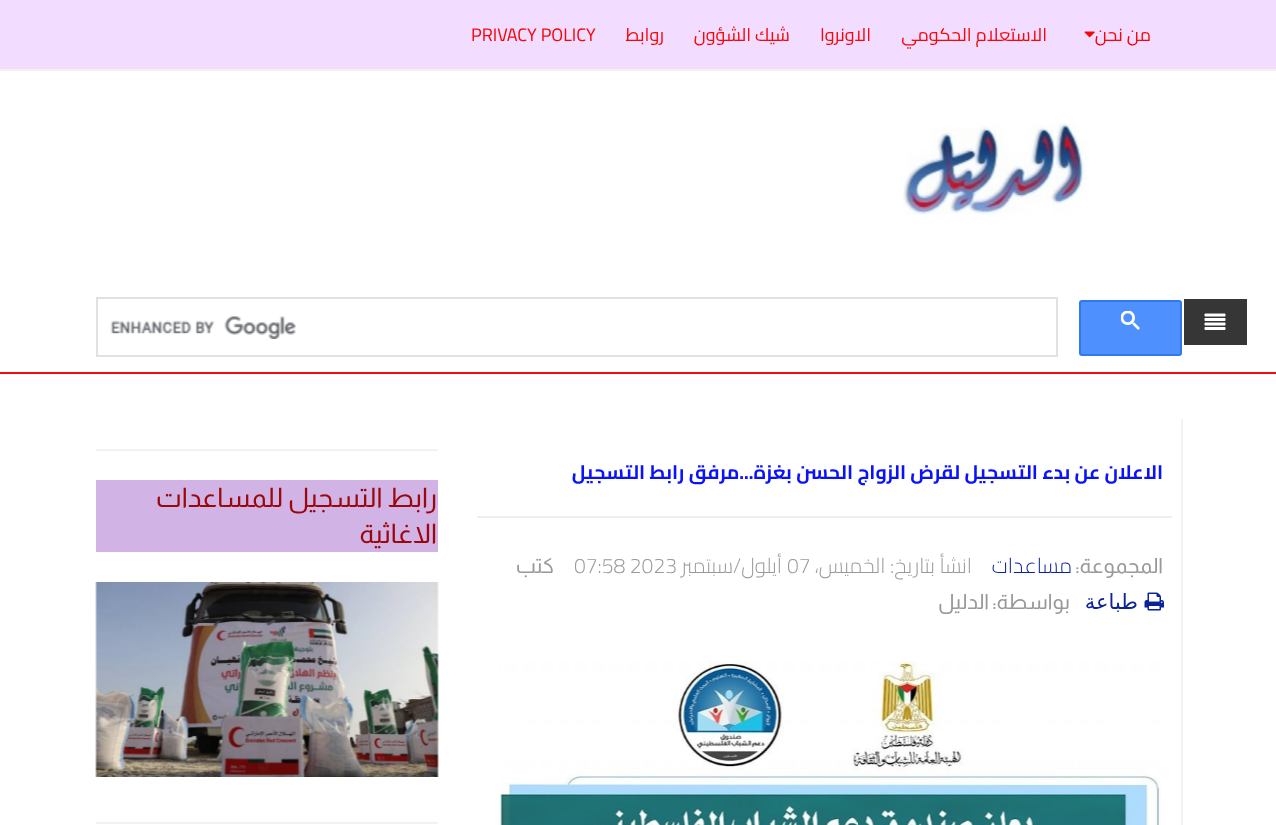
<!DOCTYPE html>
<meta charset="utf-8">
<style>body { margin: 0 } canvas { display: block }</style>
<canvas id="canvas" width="1276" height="825"></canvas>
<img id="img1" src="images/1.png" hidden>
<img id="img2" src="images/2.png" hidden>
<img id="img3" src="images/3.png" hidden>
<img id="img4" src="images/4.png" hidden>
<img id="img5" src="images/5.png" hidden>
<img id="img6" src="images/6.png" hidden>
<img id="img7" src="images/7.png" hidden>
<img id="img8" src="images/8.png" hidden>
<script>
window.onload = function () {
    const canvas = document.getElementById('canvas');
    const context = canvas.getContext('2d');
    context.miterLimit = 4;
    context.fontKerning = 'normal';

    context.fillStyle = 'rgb(255, 255, 255)';
    context.fillRect(0, 0, 1276, 825);
    context.fillStyle = 'rgb(242, 220, 255)';
    context.fillRect(0, 0, 1276, 69);
    context.fillStyle = 'rgb(242, 242, 242)';
    context.fillRect(0, 69, 1276, 2);
    context.drawImage(document.getElementById('img1'), 1084, 31, 11, 7);
    context.drawImage(document.getElementById('img2'), 903, 123, 184, 92);
    context.fillStyle = 'rgb(245, 12, 12)';
    context.fillRect(0, 372, 1276, 2);
    context.fillStyle = 'rgb(77, 144, 254)';
    context.beginPath();
    context.roundRect(1080, 301, 101, 54, 2);
    context.fill();
    context.strokeStyle = 'rgb(48, 121, 237)';
    context.lineWidth = 2;
    context.stroke();
    context.drawImage(document.getElementById('img3'), 1121, 311, 19, 19);
    context.strokeStyle = 'rgb(223, 225, 229)';
    context.strokeRect(97, 298, 960, 58);
    context.drawImage(document.getElementById('img4'), 110, 316, 186, 23);
    context.fillStyle = 'rgb(54, 54, 54)';
    context.fillRect(1184, 299, 63, 46);
    context.drawImage(document.getElementById('img5'), 1204, 313, 22, 17);
    context.fillStyle = 'rgb(242, 242, 242)';
    context.fillRect(1181, 419, 2, 406);
    context.fillStyle = 'rgb(238, 238, 238)';
    context.fillRect(477, 516, 695, 2);
    context.drawImage(document.getElementById('img6'), 1144, 592, 20, 19);
    context.drawImage(document.getElementById('img7'), 499, 661, 662, 164);
    context.fillStyle = 'rgb(242, 242, 242)';
    context.fillRect(96, 449, 342, 2);
    context.fillStyle = 'rgb(210, 179, 229)';
    context.fillRect(96, 480, 342, 72);
    context.drawImage(document.getElementById('img8'), 95, 582, 344, 195);
    context.fillStyle = 'rgb(242, 242, 242)';
    context.fillRect(96, 822, 342, 2);
    context.direction = 'rtl';
    context.font = '18px Cairo';
    context.fillStyle = 'rgb(247, 6, 6)';
    context.fillText('من نحن', 1151, 41);
    context.fillText('الاستعلام الحكومي', 1047, 41);
    context.fillText('الاونروا', 871, 41);
    context.fillText('شيك الشؤون', 790, 41);
    context.fillText('روابط', 664, 41);
    context.direction = 'ltr';
    context.fillText('PRIVACY POLICY', 471, 41);
    context.direction = 'rtl';
    context.font = 'bold 19.5px Cairo';
    context.fillStyle = 'rgb(10, 17, 253)';
    context.fillText('الاعلان عن بدء التسجيل لقرض الزواج الحسن بغزة...مرفق رابط التسجيل', 1163, 479);
    context.font = '21px Almarai';
    context.fillStyle = 'rgb(153, 153, 153)';
    context.fillText('المجموعة:', 1163, 573);
    context.font = '300 21px Cairo';
    context.fillStyle = 'rgb(11, 35, 154)';
    context.fillText('مساعدات', 1072, 573);
    context.fillStyle = 'rgb(153, 153, 153)';
    context.fillText('انشأ بتاريخ: الخميس،', 972, 573);
    context.direction = 'ltr';
    context.fillText('07', 787, 573);
    context.direction = 'rtl';
    context.fillText('أيلول/سبتمبر', 782, 573);
    context.direction = 'ltr';
    context.fillText('07:58 2023', 574, 573);
    context.direction = 'rtl';
    context.font = '21px Almarai';
    context.fillText('كتب', 554, 573);
    context.font = '21px DejaVu Sans';
    context.fillStyle = 'rgb(11, 35, 154)';
    context.fillText('طباعة', 1138, 609);
    context.font = '21px Almarai';
    context.fillStyle = 'rgb(153, 153, 153)';
    context.fillText('بواسطة:', 1070, 609);
    context.fillText('الدليل', 989, 609);
    context.font = '27px Almarai';
    context.fillStyle = 'rgb(154, 7, 13)';
    context.fillText('رابط التسجيل للمساعدات', 437, 507);
    context.fillText('الاغاثية', 437, 543);
};
</script>
